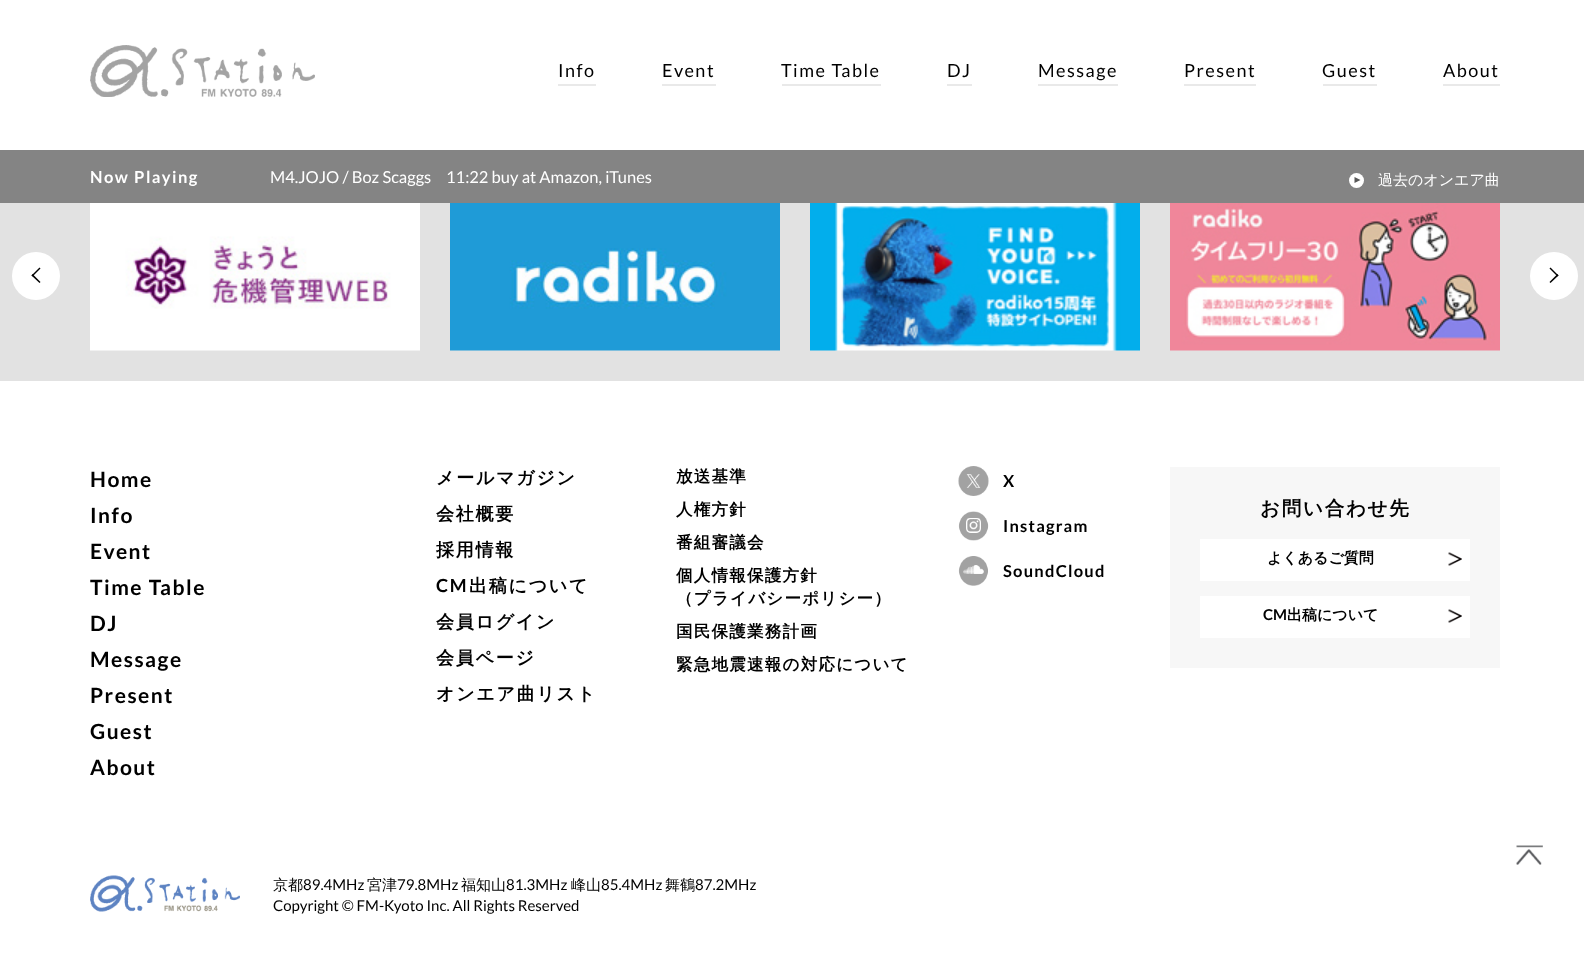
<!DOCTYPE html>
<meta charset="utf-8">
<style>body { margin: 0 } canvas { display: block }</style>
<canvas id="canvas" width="1584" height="967"></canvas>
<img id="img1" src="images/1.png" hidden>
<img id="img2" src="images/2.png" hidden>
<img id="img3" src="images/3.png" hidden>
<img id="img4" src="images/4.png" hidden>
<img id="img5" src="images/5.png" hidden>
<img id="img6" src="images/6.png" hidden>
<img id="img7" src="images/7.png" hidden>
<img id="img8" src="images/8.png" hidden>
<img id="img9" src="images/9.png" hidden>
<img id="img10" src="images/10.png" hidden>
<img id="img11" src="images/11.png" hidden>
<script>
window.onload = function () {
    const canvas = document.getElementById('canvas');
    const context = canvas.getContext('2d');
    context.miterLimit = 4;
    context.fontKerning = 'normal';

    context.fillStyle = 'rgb(255, 255, 255)';
    context.fillRect(0, 0, 1584, 967);
    context.drawImage(document.getElementById('img1'), 90, 45, 225, 52);
    context.fillStyle = 'rgb(233, 233, 233)';
    context.fillRect(558, 84, 38, 2);
    context.fillRect(662, 84, 54, 2);
    context.fillRect(782, 84, 99, 2);
    context.fillRect(947, 84, 25, 2);
    context.fillRect(1038, 84, 80, 2);
    context.fillRect(1184, 84, 72, 2);
    context.fillRect(1323, 84, 54, 2);
    context.fillRect(1443, 84, 57, 2);
    context.fillStyle = 'rgb(132, 132, 132)';
    context.fillRect(0, 150, 1584, 53);
    context.fillStyle = 'rgb(255, 255, 255)';
    context.beginPath();
    context.arc(1356.5, 180.5, 7.5, 0, 2 * Math.PI);
    context.fill();
    context.fillStyle = 'rgb(88, 88, 88)';
    context.beginPath();
    context.moveTo(1354.5, 183);
    context.lineTo(1354.5, 177);
    context.lineTo(1360.5, 180);
    context.closePath();
    context.fill();
    context.fillStyle = 'rgb(226, 226, 226)';
    context.fillRect(0, 203, 1584, 178);
    context.fillStyle = 'rgb(255, 255, 255)';
    context.beginPath();
    context.arc(36, 276, 24, 0, 2 * Math.PI);
    context.fill();
    context.fillStyle = 'rgb(0, 0, 0)';
    context.beginPath();
    context.moveTo(39.5, 283);
    context.lineTo(31.5, 275.5);
    context.lineTo(32.5, 274);
    context.lineTo(40.5, 282);
    context.closePath();
    context.fill();
    context.beginPath();
    context.moveTo(32.5, 276.5);
    context.lineTo(31.5, 275.5);
    context.lineTo(39.5, 267.5);
    context.lineTo(40.5, 268.5);
    context.closePath();
    context.fill();
    context.drawImage(document.getElementById('img2'), 90, 203, 330, 148);
    context.drawImage(document.getElementById('img3'), 450, 203, 330, 148);
    context.drawImage(document.getElementById('img4'), 810, 203, 330, 148);
    context.drawImage(document.getElementById('img5'), 1170, 203, 330, 148);
    context.fillStyle = 'rgb(255, 255, 255)';
    context.beginPath();
    context.arc(1554, 276, 24, 0, 2 * Math.PI);
    context.fill();
    context.fillStyle = 'rgb(0, 0, 0)';
    context.beginPath();
    context.moveTo(1550.5, 267.5);
    context.lineTo(1558.5, 275.5);
    context.lineTo(1557.5, 276.5);
    context.lineTo(1549.5, 268.5);
    context.closePath();
    context.fill();
    context.beginPath();
    context.moveTo(1557.5, 274);
    context.lineTo(1558.5, 275.5);
    context.lineTo(1550.5, 283);
    context.lineTo(1549.5, 282);
    context.closePath();
    context.fill();
    context.drawImage(document.getElementById('img6'), 958, 466, 31, 30);
    context.drawImage(document.getElementById('img7'), 958, 511, 31, 30);
    context.drawImage(document.getElementById('img8'), 958, 556, 30, 30);
    context.fillStyle = 'rgb(247, 247, 247)';
    context.fillRect(1170, 467, 330, 201);
    context.fillStyle = 'rgb(255, 255, 255)';
    context.fillRect(1200, 539, 270, 42);
    context.drawImage(document.getElementById('img9'), 1448, 552, 14, 14);
    context.fillRect(1200, 596, 270, 42);
    context.drawImage(document.getElementById('img9'), 1448, 609, 14, 14);
    context.drawImage(document.getElementById('img10'), 90, 875, 150, 37);
    context.drawImage(document.getElementById('img11'), 1516, 845, 27, 20);
    context.letterSpacing = '1.5px';
    context.font = '18px Lato';
    context.fillStyle = 'rgb(0, 0, 0)';
    context.fillText('Info', 558, 77);
    context.fillText('Event', 662, 77);
    context.fillText('Time Table', 781, 77);
    context.fillText('DJ', 947, 77);
    context.fillText('Message', 1038, 77);
    context.fillText('Present', 1184, 77);
    context.fillText('Guest', 1322, 77);
    context.fillText('About', 1443, 77);
    context.font = 'bold 16.5px Lato';
    context.fillStyle = 'rgb(255, 255, 255)';
    context.fillText('Now Playing', 90, 183);
    context.letterSpacing = '0px';
    context.font = '16.5px Lato';
    context.fillText('M4.JOJO / Boz Scaggs', 270, 183);
    context.fillText('11:22 buy at Amazon, iTunes', 446, 183);
    context.font = '500 15px WenQuanYi Zen Hei';
    context.fillText('過去のオンエア曲', 1378, 185);
    context.letterSpacing = '1.5px';
    context.font = 'bold 21px Lato';
    context.fillStyle = 'rgb(0, 0, 0)';
    context.fillText('Home', 90, 487);
    context.fillText('Info', 90, 523);
    context.fillText('Event', 90, 559);
    context.fillText('Time Table', 90, 595);
    context.fillText('DJ', 90, 631);
    context.fillText('Message', 90, 667);
    context.fillText('Present', 90, 703);
    context.fillText('Guest', 90, 739);
    context.fillText('About', 90, 775);
    context.letterSpacing = '1.75px';
    context.font = 'bold 18px WenQuanYi Zen Hei';
    context.fillText('メールマガジン', 436, 484);
    context.fillText('会社概要', 436, 520);
    context.fillText('採用情報', 436, 556);
    context.font = 'bold 18px Lato';
    context.fillText('CM', 436, 592);
    context.font = 'bold 18px WenQuanYi Zen Hei';
    context.fillText('出稿について', 469, 592);
    context.fillText('会員ログイン', 436, 628);
    context.fillText('会員ページ', 436, 664);
    context.fillText('オンエア曲リスト', 436, 700);
    context.letterSpacing = '1.25px';
    context.font = 'bold 16.5px WenQuanYi Zen Hei';
    context.fillText('放送基準', 676, 482);
    context.fillText('人権方針', 676, 515);
    context.fillText('番組審議会', 676, 548);
    context.fillText('個人情報保護方針', 676, 581);
    context.fillText('（プライバシーポリシー）', 676, 604);
    context.fillText('国民保護業務計画', 676, 637);
    context.fillText('緊急地震速報の対応について', 676, 670);
    context.font = 'bold 16.5px Lato';
    context.fillText('X', 1003, 487);
    context.fillText('Instagram', 1003, 532);
    context.fillText('SoundCloud', 1003, 577);
    context.letterSpacing = '1.75px';
    context.font = 'bold 19.5px WenQuanYi Zen Hei';
    context.fillText('お問い合わせ先', 1260, 515);
    context.letterSpacing = '0px';
    context.font = 'bold 15px WenQuanYi Zen Hei';
    context.fillText('よくあるご質問', 1267, 563);
    context.font = 'bold 15px Lato';
    context.fillText('CM', 1263, 620);
    context.font = 'bold 15px WenQuanYi Zen Hei';
    context.fillText('出稿について', 1287, 620);
    context.font = '500 15px WenQuanYi Zen Hei';
    context.fillText('京都', 273, 890);
    context.font = '15px Lato';
    context.fillText('89.4MHz', 303, 890);
    context.font = '500 15px WenQuanYi Zen Hei';
    context.fillText('宮津', 367, 890);
    context.font = '15px Lato';
    context.fillText('79.8MHz', 397, 890);
    context.font = '500 15px WenQuanYi Zen Hei';
    context.fillText('福知山', 461, 890);
    context.font = '15px Lato';
    context.fillText('81.3MHz', 506, 890);
    context.font = '500 15px WenQuanYi Zen Hei';
    context.fillText('峰山', 571, 890);
    context.font = '15px Lato';
    context.fillText('85.4MHz', 601, 890);
    context.font = '500 15px WenQuanYi Zen Hei';
    context.fillText('舞鶴', 665, 890);
    context.font = '15px Lato';
    context.fillText('87.2MHz', 695, 890);
    context.fillText('Copyright © FM-Kyoto Inc. All Rights Reserved', 273, 911);
};
</script>
